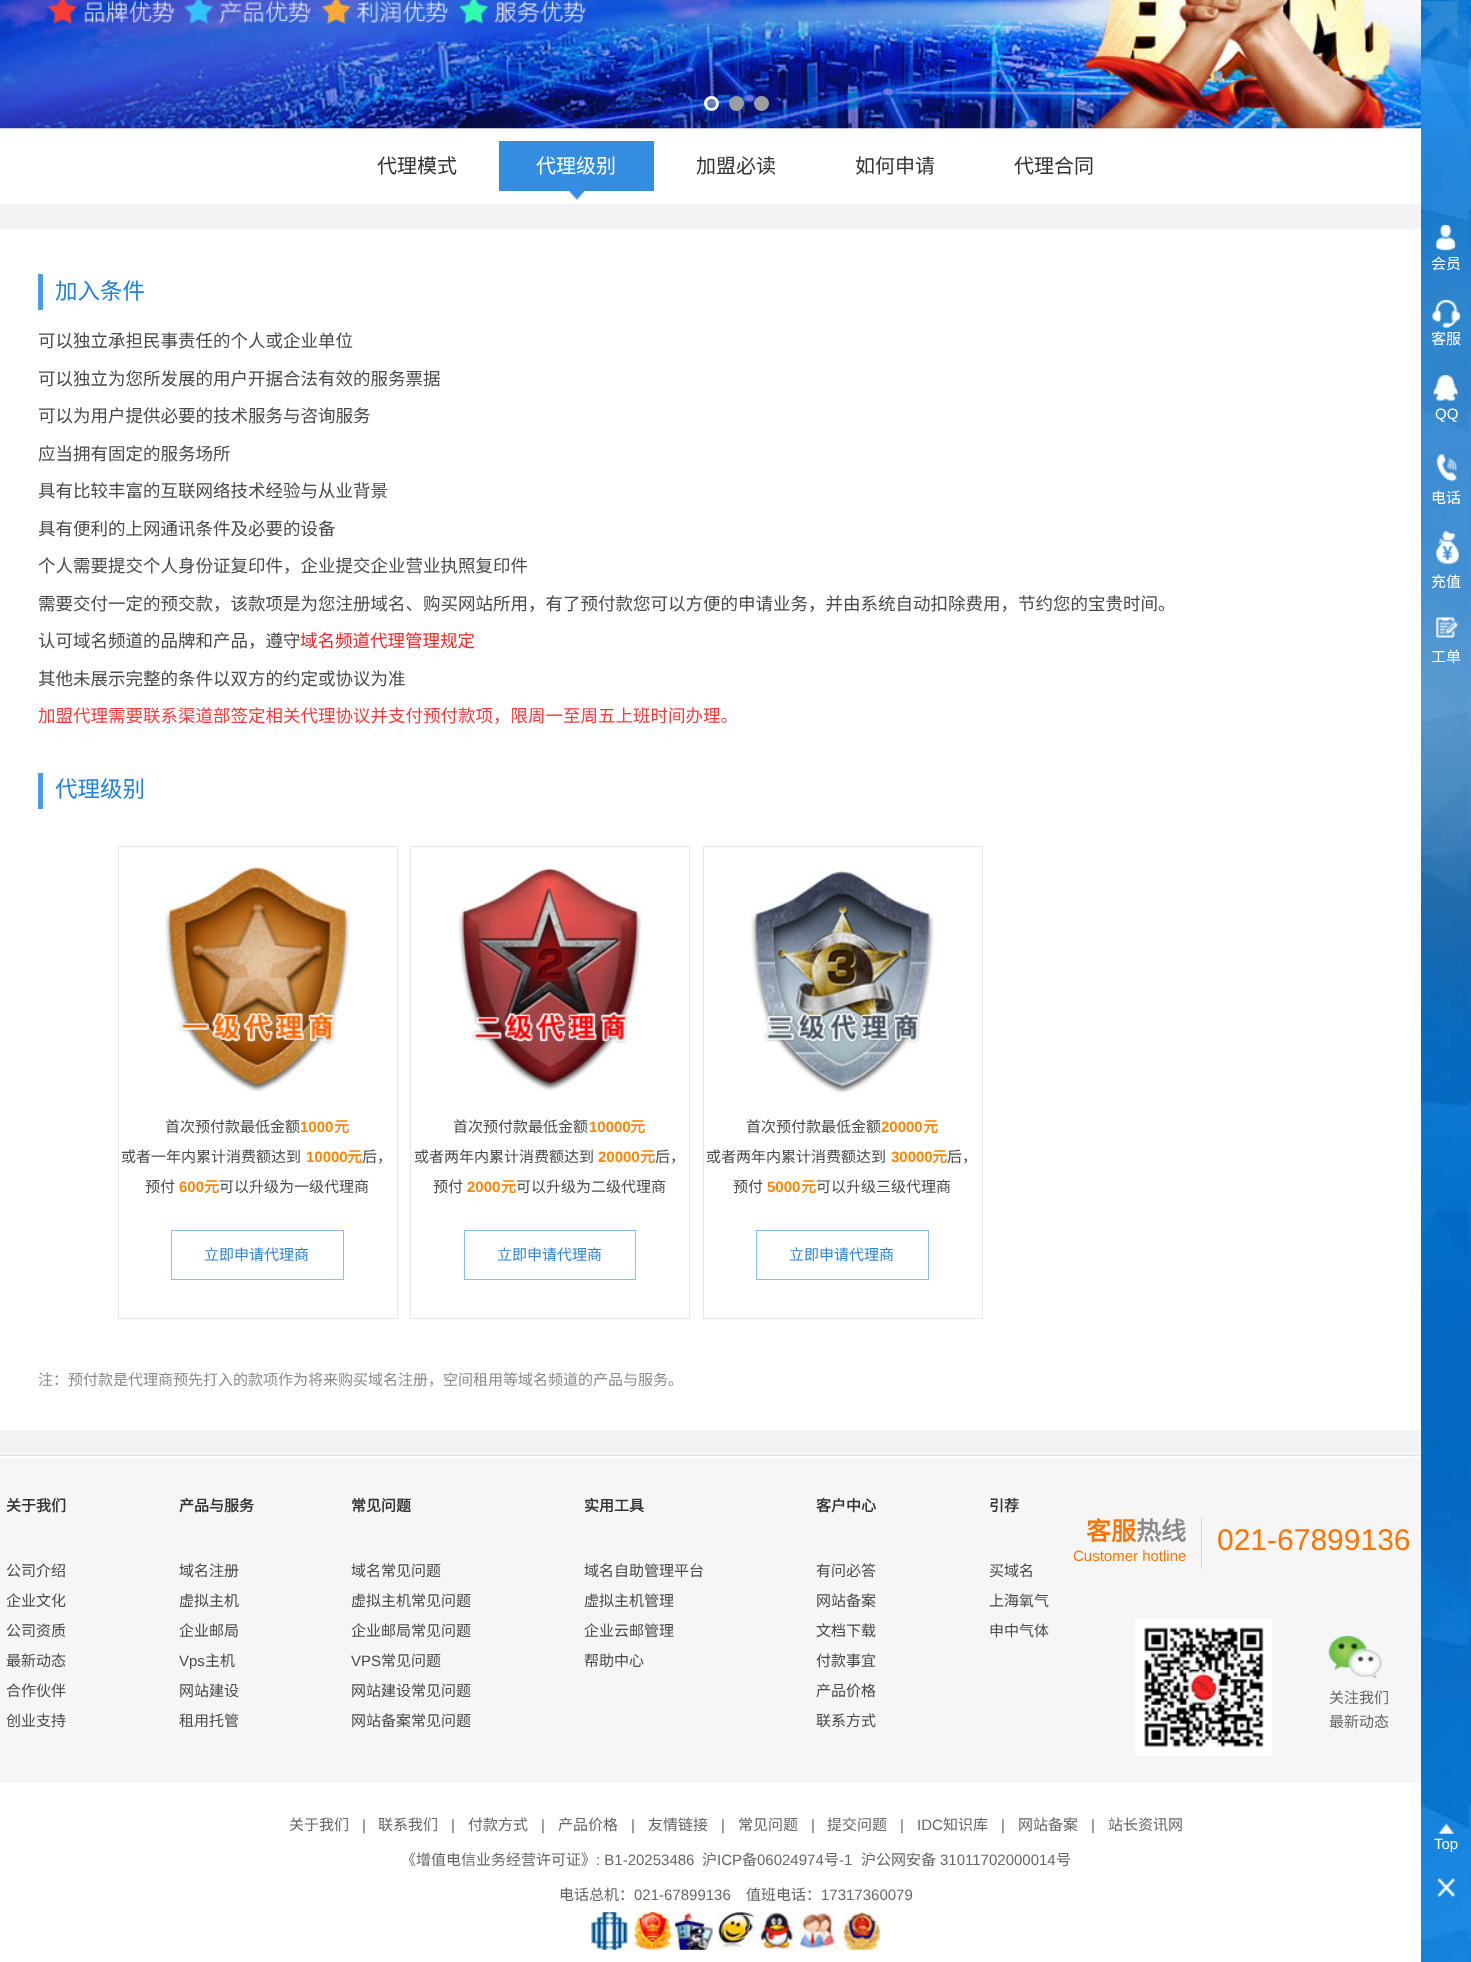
<!DOCTYPE html>
<meta charset="utf-8">
<style>body { margin: 0 } canvas { display: block }</style>
<canvas id="canvas" width="1471" height="1962"></canvas>
<img id="img1" src="images/1.png" hidden>
<img id="img2" src="images/2.png" hidden>
<img id="img3" src="images/3.png" hidden>
<img id="img4" src="images/4.png" hidden>
<img id="img5" src="images/5.png" hidden>
<img id="img6" src="images/6.png" hidden>
<img id="img7" src="images/7.png" hidden>
<img id="img8" src="images/8.png" hidden>
<img id="img9" src="images/9.png" hidden>
<img id="img10" src="images/10.png" hidden>
<img id="img11" src="images/11.png" hidden>
<img id="img12" src="images/12.png" hidden>
<img id="img13" src="images/13.png" hidden>
<img id="img14" src="images/14.png" hidden>
<img id="img15" src="images/15.png" hidden>
<img id="img16" src="images/16.png" hidden>
<img id="img17" src="images/17.png" hidden>
<img id="img18" src="images/18.png" hidden>
<img id="img19" src="images/19.png" hidden>
<img id="img20" src="images/20.png" hidden>
<img id="img21" src="images/21.png" hidden>
<img id="img22" src="images/22.png" hidden>
<img id="img23" src="images/23.png" hidden>
<script>
window.onload = function () {
    const canvas = document.getElementById('canvas');
    const context = canvas.getContext('2d');
    context.miterLimit = 4;
    context.fontKerning = 'normal';

    context.fillStyle = 'rgb(255, 255, 255)';
    context.fillRect(0, 0, 1471, 1962);
    context.drawImage(document.getElementById('img1'), 0, 0, 1421, 129);
    context.fillStyle = 'rgba(159, 158, 158, 0.55)';
    context.beginPath();
    context.arc(711.5, 103.5, 6, 0, 2 * Math.PI);
    context.fill();
    context.strokeStyle = 'rgb(255, 255, 255)';
    context.lineWidth = 3;
    context.stroke();
    context.fillStyle = 'rgb(159, 158, 158)';
    context.beginPath();
    context.arc(736.5, 103.5, 7.5, 0, 2 * Math.PI);
    context.fill();
    context.beginPath();
    context.arc(761.5, 103.5, 7.5, 0, 2 * Math.PI);
    context.fill();
    context.fillStyle = 'rgb(53, 141, 226)';
    context.fillRect(499, 141, 155, 50);
    context.drawImage(document.getElementById('img2'), 568, 191, 16, 10);
    context.fillStyle = 'rgb(242, 243, 245)';
    context.fillRect(0, 204, 1421, 1251);
    context.fillStyle = 'rgb(255, 255, 255)';
    context.fillRect(0, 229, 1421, 1201);
    context.fillStyle = 'rgb(74, 155, 237)';
    context.fillRect(38, 274, 5, 36);
    context.fillRect(38, 773, 5, 36);
    context.strokeStyle = 'rgb(231, 231, 231)';
    context.lineWidth = 1;
    context.strokeRect(118.5, 846.5, 279, 472);
    context.drawImage(document.getElementById('img3'), 165, 867, 185, 225);
    context.strokeStyle = 'rgb(139, 188, 255)';
    context.strokeRect(171.5, 1230.5, 172, 49);
    context.strokeStyle = 'rgb(231, 231, 231)';
    context.strokeRect(410.5, 846.5, 279, 472);
    context.drawImage(document.getElementById('img4'), 458, 867, 184, 224);
    context.strokeStyle = 'rgb(139, 188, 255)';
    context.strokeRect(464.5, 1230.5, 171, 49);
    context.strokeStyle = 'rgb(231, 231, 231)';
    context.strokeRect(703.5, 846.5, 279, 472);
    context.drawImage(document.getElementById('img5'), 750, 868, 185, 225);
    context.strokeStyle = 'rgb(139, 188, 255)';
    context.strokeRect(756.5, 1230.5, 172, 49);
    context.drawImage(document.getElementById('img6'), 1421, 0, 50, 1962);
    context.drawImage(document.getElementById('img7'), 1436, 225, 20, 26);
    context.drawImage(document.getElementById('img8'), 1432, 300, 29, 28);
    context.drawImage(document.getElementById('img9'), 1433, 375, 25, 26);
    context.drawImage(document.getElementById('img10'), 1436, 453, 21, 29);
    context.drawImage(document.getElementById('img11'), 1436, 531, 23, 33);
    context.drawImage(document.getElementById('img12'), 1436, 617, 22, 21);
    context.drawImage(document.getElementById('img13'), 1438, 1823, 16, 11);
    context.drawImage(document.getElementById('img14'), 1437, 1878, 19, 20);
    context.fillStyle = 'rgb(228, 228, 228)';
    context.fillRect(0, 1455, 1421, 1);
    context.fillStyle = 'rgb(246, 246, 246)';
    context.fillRect(0, 1458, 1421, 325);
    context.fillStyle = 'rgb(210, 210, 210)';
    context.fillRect(1201, 1518, 1, 51);
    context.drawImage(document.getElementById('img15'), 1135, 1618, 138, 138);
    context.drawImage(document.getElementById('img16'), 1328, 1635, 54, 44);
    context.drawImage(document.getElementById('img17'), 591, 1912, 38, 38);
    context.drawImage(document.getElementById('img18'), 633, 1912, 39, 38);
    context.drawImage(document.getElementById('img19'), 675, 1912, 38, 38);
    context.drawImage(document.getElementById('img20'), 717, 1912, 38, 38);
    context.drawImage(document.getElementById('img21'), 759, 1912, 37, 38);
    context.drawImage(document.getElementById('img22'), 800, 1912, 38, 38);
    context.drawImage(document.getElementById('img23'), 843, 1912, 37, 38);
    context.font = '20px Noto Sans CJK SC';
    context.fillStyle = 'rgb(51, 51, 51)';
    context.fillText('代理模式', 377, 173);
    context.fillStyle = 'rgb(255, 255, 255)';
    context.fillText('代理级别', 536, 173);
    context.fillStyle = 'rgb(51, 51, 51)';
    context.fillText('加盟必读', 696, 173);
    context.fillText('如何申请', 855, 173);
    context.fillText('代理合同', 1014, 173);
    context.font = '22.5px Noto Sans CJK SC';
    context.fillStyle = 'rgb(34, 129, 224)';
    context.fillText('加入条件', 55, 299);
    context.font = '17.5px Noto Sans CJK SC';
    context.fillStyle = 'rgb(74, 74, 74)';
    context.fillText('可以独立承担民事责任的个人或企业单位', 38, 347);
    context.fillText('可以独立为您所发展的用户开据合法有效的服务票据', 38, 385);
    context.fillText('可以为用户提供必要的技术服务与咨询服务', 38, 422);
    context.fillText('应当拥有固定的服务场所', 38, 460);
    context.fillText('具有比较丰富的互联网络技术经验与从业背景', 38, 497);
    context.fillText('具有便利的上网通讯条件及必要的设备', 38, 535);
    context.fillText('个人需要提交个人身份证复印件，企业提交企业营业执照复印件', 38, 572);
    context.fillText('需要交付一定的预交款，该款项是为您注册域名、购买网站所用，有了预付款您可以方便的申请业务，并由系统自动扣除费用，节约您的宝贵时间。', 38, 610);
    context.fillText('认可域名频道的品牌和产品，遵守', 38, 647);
    context.fillStyle = 'rgb(247, 37, 37)';
    context.fillText('域名频道代理管理规定', 300, 647);
    context.fillStyle = 'rgb(74, 74, 74)';
    context.fillText('其他未展示完整的条件以双方的约定或协议为准', 38, 685);
    context.fillStyle = 'rgb(250, 58, 58)';
    context.fillText('加盟代理需要联系渠道部签定相关代理协议并支付预付款项，限周一至周五上班时间办理。', 38, 722);
    context.font = '22.5px Noto Sans CJK SC';
    context.fillStyle = 'rgb(34, 129, 224)';
    context.fillText('代理级别', 55, 797);
    context.font = '15px Noto Sans CJK SC';
    context.fillStyle = 'rgb(74, 74, 74)';
    context.fillText('首次预付款最低金额', 165, 1132);
    context.font = 'bold 15px Liberation Sans';
    context.fillStyle = 'rgb(255, 132, 0)';
    context.fillText('1000', 300, 1132);
    context.font = 'bold 15px Noto Sans CJK SC';
    context.fillText('元', 334, 1132);
    context.font = '15px Noto Sans CJK SC';
    context.fillStyle = 'rgb(74, 74, 74)';
    context.fillText('或者一年内累计消费额达到', 121, 1162);
    context.font = 'bold 15px Liberation Sans';
    context.fillStyle = 'rgb(255, 132, 0)';
    context.fillText('10000', 306, 1162);
    context.font = 'bold 15px Noto Sans CJK SC';
    context.fillText('元', 347, 1162);
    context.font = '15px Noto Sans CJK SC';
    context.fillStyle = 'rgb(74, 74, 74)';
    context.fillText('后，', 362, 1162);
    context.fillText('预付', 145, 1192);
    context.font = 'bold 15px Liberation Sans';
    context.fillStyle = 'rgb(255, 132, 0)';
    context.fillText('600', 179, 1192);
    context.font = 'bold 15px Noto Sans CJK SC';
    context.fillText('元', 204, 1192);
    context.font = '15px Noto Sans CJK SC';
    context.fillStyle = 'rgb(74, 74, 74)';
    context.fillText('可以升级为一级代理商', 219, 1192);
    context.fillStyle = 'rgb(46, 131, 219)';
    context.fillText('立即申请代理商', 204, 1260);
    context.fillStyle = 'rgb(74, 74, 74)';
    context.fillText('首次预付款最低金额', 453, 1132);
    context.font = 'bold 15px Liberation Sans';
    context.fillStyle = 'rgb(255, 132, 0)';
    context.fillText('10000', 589, 1132);
    context.font = 'bold 15px Noto Sans CJK SC';
    context.fillText('元', 630, 1132);
    context.font = '15px Noto Sans CJK SC';
    context.fillStyle = 'rgb(74, 74, 74)';
    context.fillText('或者两年内累计消费额达到', 414, 1162);
    context.font = 'bold 15px Liberation Sans';
    context.fillStyle = 'rgb(255, 132, 0)';
    context.fillText('20000', 598, 1162);
    context.font = 'bold 15px Noto Sans CJK SC';
    context.fillText('元', 640, 1162);
    context.font = '15px Noto Sans CJK SC';
    context.fillStyle = 'rgb(74, 74, 74)';
    context.fillText('后，', 655, 1162);
    context.fillText('预付', 433, 1192);
    context.font = 'bold 15px Liberation Sans';
    context.fillStyle = 'rgb(255, 132, 0)';
    context.fillText('2000', 467, 1192);
    context.font = 'bold 15px Noto Sans CJK SC';
    context.fillText('元', 501, 1192);
    context.font = '15px Noto Sans CJK SC';
    context.fillStyle = 'rgb(74, 74, 74)';
    context.fillText('可以升级为二级代理商', 516, 1192);
    context.fillStyle = 'rgb(46, 131, 219)';
    context.fillText('立即申请代理商', 497, 1260);
    context.fillStyle = 'rgb(74, 74, 74)';
    context.fillText('首次预付款最低金额', 746, 1132);
    context.font = 'bold 15px Liberation Sans';
    context.fillStyle = 'rgb(255, 132, 0)';
    context.fillText('20000', 881, 1132);
    context.font = 'bold 15px Noto Sans CJK SC';
    context.fillText('元', 923, 1132);
    context.font = '15px Noto Sans CJK SC';
    context.fillStyle = 'rgb(74, 74, 74)';
    context.fillText('或者两年内累计消费额达到', 706, 1162);
    context.font = 'bold 15px Liberation Sans';
    context.fillStyle = 'rgb(255, 132, 0)';
    context.fillText('30000', 891, 1162);
    context.font = 'bold 15px Noto Sans CJK SC';
    context.fillText('元', 932, 1162);
    context.font = '15px Noto Sans CJK SC';
    context.fillStyle = 'rgb(74, 74, 74)';
    context.fillText('后，', 947, 1162);
    context.fillText('预付', 733, 1192);
    context.font = 'bold 15px Liberation Sans';
    context.fillStyle = 'rgb(255, 132, 0)';
    context.fillText('5000', 767, 1192);
    context.font = 'bold 15px Noto Sans CJK SC';
    context.fillText('元', 801, 1192);
    context.font = '15px Noto Sans CJK SC';
    context.fillStyle = 'rgb(74, 74, 74)';
    context.fillText('可以升级三级代理商', 816, 1192);
    context.fillStyle = 'rgb(46, 131, 219)';
    context.fillText('立即申请代理商', 789, 1260);
    context.fillStyle = 'rgb(138, 138, 138)';
    context.fillText('注：预付款是代理商预先打入的款项作为将来购买域名注册，空间租用等域名频道的产品与服务。', 38, 1385);
    context.fillStyle = 'rgb(255, 255, 255)';
    context.fillText('会员', 1431, 269);
    context.fillText('客服', 1431, 344);
    context.font = '15px Liberation Sans';
    context.fillText('QQ', 1435, 419);
    context.font = '15px Noto Sans CJK SC';
    context.fillText('电话', 1431, 503);
    context.fillText('充值', 1431, 587);
    context.fillText('工单', 1431, 662);
    context.font = '15px Liberation Sans';
    context.fillText('Top', 1434, 1849);
    context.font = 'bold 15px Noto Sans CJK SC';
    context.fillStyle = 'rgb(51, 51, 51)';
    context.fillText('关于我们', 6, 1511);
    context.font = '15px Noto Sans CJK SC';
    context.fillStyle = 'rgb(74, 74, 74)';
    context.fillText('公司介绍', 6, 1576);
    context.fillText('企业文化', 6, 1606);
    context.fillText('公司资质', 6, 1636);
    context.fillText('最新动态', 6, 1666);
    context.fillText('合作伙伴', 6, 1696);
    context.fillText('创业支持', 6, 1726);
    context.font = 'bold 15px Noto Sans CJK SC';
    context.fillStyle = 'rgb(51, 51, 51)';
    context.fillText('产品与服务', 179, 1511);
    context.font = '15px Noto Sans CJK SC';
    context.fillStyle = 'rgb(74, 74, 74)';
    context.fillText('域名注册', 179, 1576);
    context.fillText('虚拟主机', 179, 1606);
    context.fillText('企业邮局', 179, 1636);
    context.font = '15px Liberation Sans';
    context.fillText('Vps', 179, 1666);
    context.font = '15px Noto Sans CJK SC';
    context.fillText('主机', 205, 1666);
    context.fillText('网站建设', 179, 1696);
    context.fillText('租用托管', 179, 1726);
    context.font = 'bold 15px Noto Sans CJK SC';
    context.fillStyle = 'rgb(51, 51, 51)';
    context.fillText('常见问题', 351, 1511);
    context.font = '15px Noto Sans CJK SC';
    context.fillStyle = 'rgb(74, 74, 74)';
    context.fillText('域名常见问题', 351, 1576);
    context.fillText('虚拟主机常见问题', 351, 1606);
    context.fillText('企业邮局常见问题', 351, 1636);
    context.font = '15px Liberation Sans';
    context.fillText('VPS', 351, 1666);
    context.font = '15px Noto Sans CJK SC';
    context.fillText('常见问题', 381, 1666);
    context.fillText('网站建设常见问题', 351, 1696);
    context.fillText('网站备案常见问题', 351, 1726);
    context.font = 'bold 15px Noto Sans CJK SC';
    context.fillStyle = 'rgb(51, 51, 51)';
    context.fillText('实用工具', 584, 1511);
    context.font = '15px Noto Sans CJK SC';
    context.fillStyle = 'rgb(74, 74, 74)';
    context.fillText('域名自助管理平台', 584, 1576);
    context.fillText('虚拟主机管理', 584, 1606);
    context.fillText('企业云邮管理', 584, 1636);
    context.fillText('帮助中心', 584, 1666);
    context.font = 'bold 15px Noto Sans CJK SC';
    context.fillStyle = 'rgb(51, 51, 51)';
    context.fillText('客户中心', 816, 1511);
    context.font = '15px Noto Sans CJK SC';
    context.fillStyle = 'rgb(74, 74, 74)';
    context.fillText('有问必答', 816, 1576);
    context.fillText('网站备案', 816, 1606);
    context.fillText('文档下载', 816, 1636);
    context.fillText('付款事宜', 816, 1666);
    context.fillText('产品价格', 816, 1696);
    context.fillText('联系方式', 816, 1726);
    context.font = 'bold 15px Noto Sans CJK SC';
    context.fillStyle = 'rgb(51, 51, 51)';
    context.fillText('引荐', 989, 1511);
    context.font = '15px Noto Sans CJK SC';
    context.fillStyle = 'rgb(74, 74, 74)';
    context.fillText('买域名', 989, 1576);
    context.fillText('上海氧气', 989, 1606);
    context.fillText('申中气体', 989, 1636);
    context.font = 'bold 25px Noto Sans CJK SC';
    context.fillStyle = 'rgb(254, 116, 2)';
    context.fillText('客服', 1086, 1540);
    context.fillStyle = 'rgb(138, 138, 138)';
    context.fillText('热线', 1136, 1540);
    context.font = '15px Liberation Sans';
    context.fillStyle = 'rgb(254, 116, 2)';
    context.fillText('Customer hotline', 1073, 1561);
    context.font = '30px Liberation Sans';
    context.fillText('021-67899136', 1217, 1550);
    context.font = '15px Noto Sans CJK SC';
    context.fillStyle = 'rgb(102, 102, 102)';
    context.fillText('关注我们', 1329, 1703);
    context.fillText('最新动态', 1329, 1727);
    context.fillText('关于我们', 289, 1830);
    context.font = '15px Liberation Sans';
    context.fillText('|', 362, 1830);
    context.font = '15px Noto Sans CJK SC';
    context.fillText('联系我们', 378, 1830);
    context.font = '15px Liberation Sans';
    context.fillText('|', 451, 1830);
    context.font = '15px Noto Sans CJK SC';
    context.fillText('付款方式', 468, 1830);
    context.font = '15px Liberation Sans';
    context.fillText('|', 541, 1830);
    context.font = '15px Noto Sans CJK SC';
    context.fillText('产品价格', 558, 1830);
    context.font = '15px Liberation Sans';
    context.fillText('|', 631, 1830);
    context.font = '15px Noto Sans CJK SC';
    context.fillText('友情链接', 648, 1830);
    context.font = '15px Liberation Sans';
    context.fillText('|', 721, 1830);
    context.font = '15px Noto Sans CJK SC';
    context.fillText('常见问题', 738, 1830);
    context.font = '15px Liberation Sans';
    context.fillText('|', 811, 1830);
    context.font = '15px Noto Sans CJK SC';
    context.fillText('提交问题', 827, 1830);
    context.font = '15px Liberation Sans';
    context.fillText('|', 900, 1830);
    context.fillText('IDC', 917, 1830);
    context.font = '15px Noto Sans CJK SC';
    context.fillText('知识库', 943, 1830);
    context.font = '15px Liberation Sans';
    context.fillText('|', 1001, 1830);
    context.font = '15px Noto Sans CJK SC';
    context.fillText('网站备案', 1018, 1830);
    context.font = '15px Liberation Sans';
    context.fillText('|', 1091, 1830);
    context.font = '15px Noto Sans CJK SC';
    context.fillText('站长资讯网', 1108, 1830);
    context.fillText('《增值电信业务经营许可证》', 401, 1865);
    context.font = '15px Liberation Sans';
    context.fillText(': B1-20253486', 596, 1865);
    context.font = '15px Noto Sans CJK SC';
    context.fillText('沪', 702, 1865);
    context.font = '15px Liberation Sans';
    context.fillText('ICP', 717, 1865);
    context.font = '15px Noto Sans CJK SC';
    context.fillText('备', 742, 1865);
    context.font = '15px Liberation Sans';
    context.fillText('06024974', 757, 1865);
    context.font = '15px Noto Sans CJK SC';
    context.fillText('号', 824, 1865);
    context.font = '15px Liberation Sans';
    context.fillText('-1', 839, 1865);
    context.font = '15px Noto Sans CJK SC';
    context.fillText('沪公网安备', 861, 1865);
    context.font = '15px Liberation Sans';
    context.fillText('31011702000014', 940, 1865);
    context.font = '15px Noto Sans CJK SC';
    context.fillText('号', 1056, 1865);
    context.fillText('电话总机：', 559, 1900);
    context.font = '15px Liberation Sans';
    context.fillText('021-67899136', 634, 1900);
    context.font = '15px Noto Sans CJK SC';
    context.fillText('值班电话：', 746, 1900);
    context.font = '15px Liberation Sans';
    context.fillText('17317360079', 821, 1900);
};
</script>
